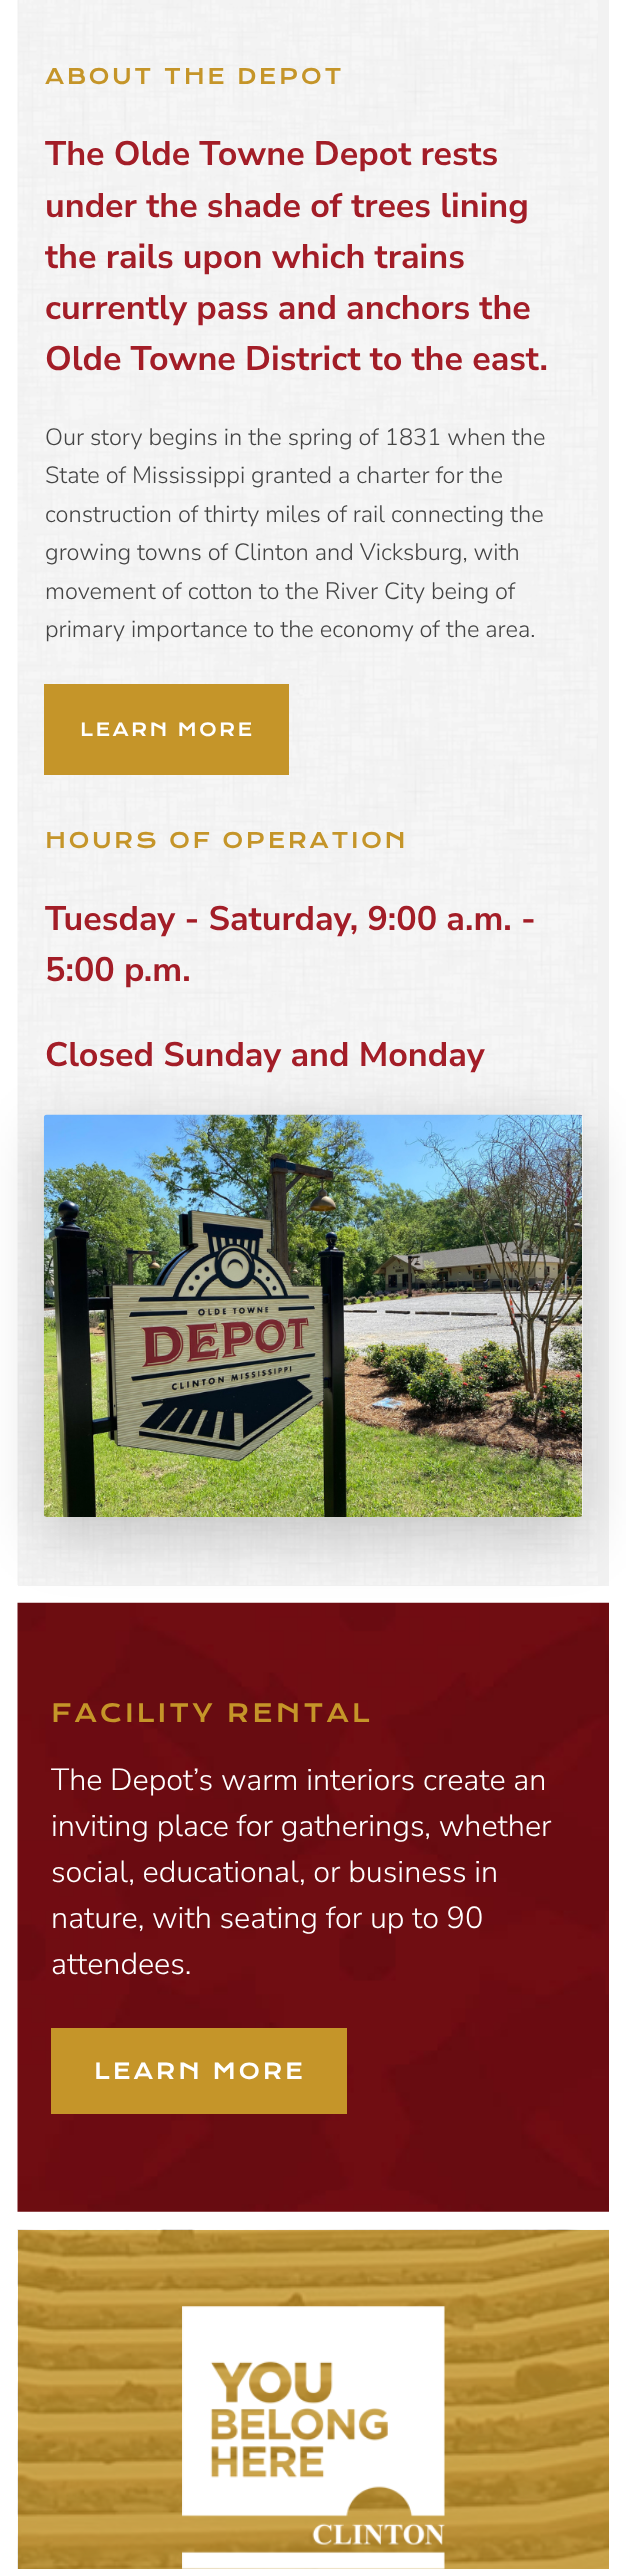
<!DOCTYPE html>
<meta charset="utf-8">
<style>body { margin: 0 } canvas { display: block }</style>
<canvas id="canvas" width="626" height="2569"></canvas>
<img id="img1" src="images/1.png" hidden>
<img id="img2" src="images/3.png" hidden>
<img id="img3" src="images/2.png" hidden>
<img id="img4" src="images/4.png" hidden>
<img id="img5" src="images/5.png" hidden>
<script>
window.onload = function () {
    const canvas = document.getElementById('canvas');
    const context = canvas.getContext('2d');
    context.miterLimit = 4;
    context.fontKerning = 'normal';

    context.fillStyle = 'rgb(255, 255, 255)';
    context.fillRect(0, 0, 626, 2569);
    context.fillStyle = 'rgb(242, 242, 242)';
    context.fillRect(18, 0, 591, 1586);
    context.drawImage(document.getElementById('img1'), 17, 0, 581, 1585);
    context.fillStyle = 'rgb(197, 149, 41)';
    context.fillRect(44, 684, 245, 91);
    context.drawImage(document.getElementById('img2'), 17, 1602, 592, 610);
    context.fillStyle = 'rgba(0, 0, 0, 0.2)';
    context.filter = 'blur(30.5px)';
    context.beginPath();
    context.roundRect(44, 1132, 539, 403, 4);
    context.fill();
    context.filter = 'none';
    context.drawImage(document.getElementById('img3'), 43, 1114, 540, 403);
    context.fillStyle = 'rgb(197, 149, 41)';
    context.fillRect(51, 2028, 296, 86);
    context.fillRect(18, 2230, 591, 339);
    context.drawImage(document.getElementById('img4'), 17, 2229, 592, 340);
    context.drawImage(document.getElementById('img5'), 182, 2306, 263, 263);
    context.letterSpacing = '2.6px';
    context.font = '21px Krona One';
    context.fillText('ABOUT THE DEPOT', 45, 84);
    context.letterSpacing = '0px';
    context.font = 'bold 34.1px Nunito Sans';
    context.fillStyle = 'rgb(163, 29, 39)';
    context.fillText('The Olde Towne Depot rests', 45, 165);
    context.fillText('under the shade of trees lining', 45, 217);
    context.fillText('the rails upon which trains', 45, 268);
    context.fillText('currently pass and anchors the', 45, 319);
    context.fillText('Olde Towne District to the east.', 45, 370);
    context.font = '300 23.6px Nunito Sans';
    context.fillStyle = 'rgb(68, 68, 68)';
    context.fillText('Our story begins in the spring of 1831 when the', 45, 445);
    context.fillText('State of Mississippi granted a charter for the', 45, 483);
    context.fillText('construction of thirty miles of rail connecting the', 45, 522);
    context.fillText('growing towns of Clinton and Vicksburg, with', 45, 560);
    context.fillText('movement of cotton to the River City being of', 45, 599);
    context.fillText('primary importance to the economy of the area.', 45, 637);
    context.letterSpacing = '2.25px';
    context.font = '17.75px Krona One';
    context.fillStyle = 'rgb(255, 255, 255)';
    context.fillText('LEARN MORE', 80, 736);
    context.letterSpacing = '2.6px';
    context.font = '21px Krona One';
    context.fillStyle = 'rgb(197, 149, 41)';
    context.fillText('HOURS OF OPERATION', 45, 848);
    context.letterSpacing = '0px';
    context.font = 'bold 34.1px Nunito Sans';
    context.fillStyle = 'rgb(163, 29, 39)';
    context.fillText('Tuesday - Saturday, 9:00 a.m. -', 45, 930);
    context.fillText('5:00 p.m.', 45, 981);
    context.fillText('Closed Sunday and Monday', 45, 1066);
    context.letterSpacing = '3px';
    context.font = '24.5px Krona One';
    context.fillStyle = 'rgb(197, 149, 41)';
    context.fillText('FACILITY RENTAL', 51, 1722);
    context.letterSpacing = '0px';
    context.font = '300 30.6px Nunito Sans';
    context.fillStyle = 'rgb(255, 255, 255)';
    context.fillText('The Depot’s warm interiors create an', 51, 1790);
    context.fillText('inviting place for gatherings, whether', 51, 1836);
    context.fillText('social, educational, or business in', 51, 1882);
    context.fillText('nature, with seating for up to 90', 51, 1928);
    context.fillText('attendees.', 51, 1974);
    context.letterSpacing = '2.75px';
    context.font = '21.5px Krona One';
    context.fillText('LEARN MORE', 94, 2079);
};
</script>
